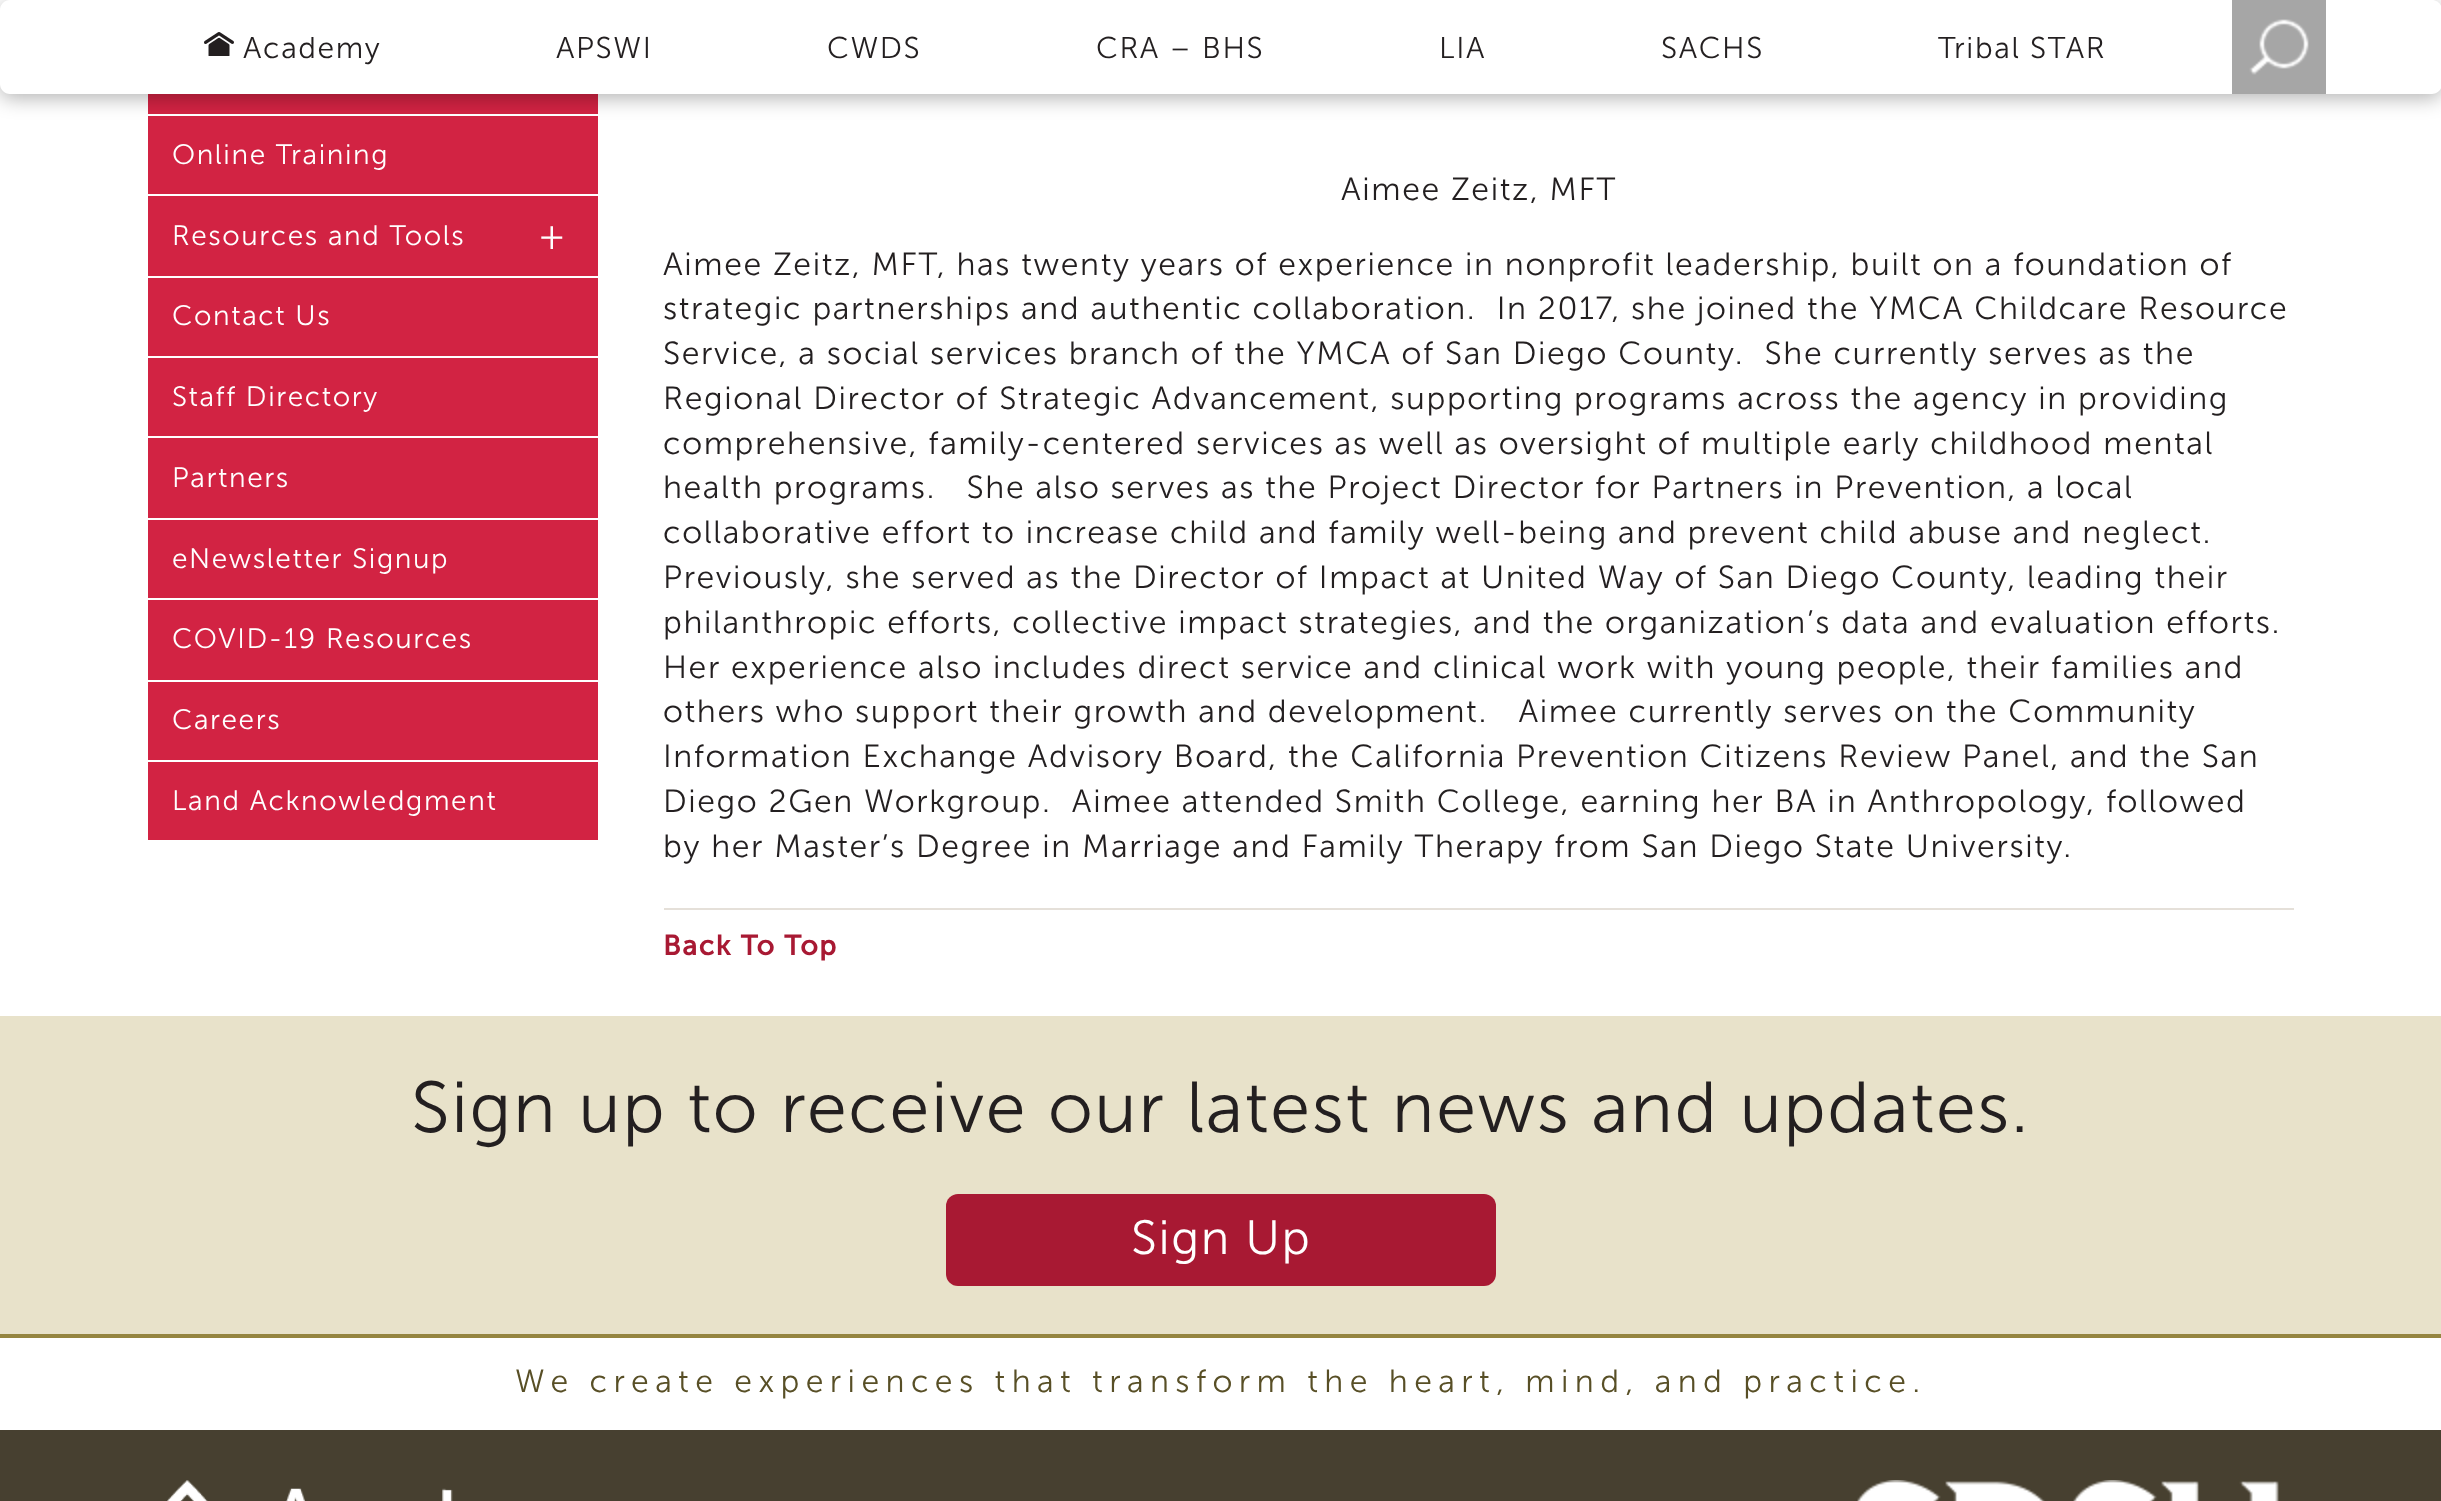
<!DOCTYPE html>
<meta charset="utf-8">
<style>body { margin: 0 } canvas { display: block }</style>
<canvas id="canvas" width="2441" height="1501"></canvas>
<img id="img1" src="images/1.png" hidden>
<img id="img2" src="images/2.png" hidden>
<img id="img3" src="images/3.png" hidden>
<img id="img4" src="images/4.png" hidden>
<script>
window.onload = function () {
    const canvas = document.getElementById('canvas');
    const context = canvas.getContext('2d');
    context.miterLimit = 4;
    context.fontKerning = 'normal';

    context.fillStyle = 'rgb(255, 255, 255)';
    context.fillRect(0, 0, 2441, 1501);
    context.fillStyle = 'rgb(210, 35, 67)';
    context.fillRect(148, 94, 450, 20);
    context.fillRect(148, 116, 450, 78);
    context.save();
    context.beginPath();
    context.moveTo(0, 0);
    context.lineTo(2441, 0);
    context.lineTo(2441, 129);
    context.lineTo(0, 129);
    context.closePath();
    context.moveTo(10, 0);
    context.lineTo(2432, 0);
    context.bezierCurveTo(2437.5, 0, 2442, 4.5, 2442, 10);
    context.lineTo(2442, 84);
    context.bezierCurveTo(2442, 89.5, 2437.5, 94, 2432, 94);
    context.lineTo(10, 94);
    context.bezierCurveTo(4.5, 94, 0, 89.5, 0, 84);
    context.lineTo(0, 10);
    context.bezierCurveTo(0, 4.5, 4.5, 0, 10, 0);
    context.closePath();
    context.clip('evenodd');
    context.fillStyle = 'rgba(0, 0, 0, 0.3)';
    context.filter = 'blur(10px)';
    context.beginPath();
    context.roundRect(0, 4, 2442, 94, 10);
    context.fill();
    context.filter = 'none';
    context.restore();
    context.drawImage(document.getElementById('img1'), 204, 32, 30, 24);
    context.fillStyle = 'rgb(166, 166, 166)';
    context.fillRect(2232, 0, 94, 94);
    context.drawImage(document.getElementById('img2'), 2249, 19, 60, 56);
    context.fillStyle = 'rgb(210, 35, 67)';
    context.fillRect(148, 196, 450, 80);
    context.fillRect(148, 278, 450, 78);
    context.fillRect(148, 358, 450, 78);
    context.fillRect(148, 438, 450, 80);
    context.fillRect(148, 520, 450, 78);
    context.fillRect(148, 600, 450, 80);
    context.fillRect(148, 682, 450, 78);
    context.fillRect(148, 762, 450, 78);
    context.fillStyle = 'rgb(229, 224, 217)';
    context.fillRect(664, 908, 1630, 2);
    context.fillStyle = 'rgb(232, 226, 202)';
    context.fillRect(0, 1016, 2441, 318);
    context.fillStyle = 'rgb(168, 25, 51)';
    context.beginPath();
    context.roundRect(946, 1194, 550, 92, 12);
    context.fill();
    context.fillStyle = 'rgb(149, 133, 64)';
    context.fillRect(0, 1334, 2441, 4);
    context.fillStyle = 'rgb(71, 64, 48)';
    context.fillRect(0, 1430, 2441, 71);
    context.drawImage(document.getElementById('img3'), 167, 1480, 286, 21);
    context.drawImage(document.getElementById('img4'), 1857, 1480, 422, 21);
    context.letterSpacing = '1.6px';
    context.font = '300 30px Museo Sans';
    context.fillStyle = 'rgb(35, 31, 32)';
    context.fillText('Academy', 243, 58);
    context.fillText('APSWI', 556, 58);
    context.fillText('CWDS', 827, 58);
    context.fillText('CRA – BHS', 1096, 58);
    context.fillText('LIA', 1439, 58);
    context.fillText('SACHS', 1661, 58);
    context.fillText('Tribal STAR', 1938, 58);
    context.font = '300 28px Museo Sans';
    context.fillStyle = 'rgb(255, 255, 255)';
    context.fillText('Online Training', 172, 164);
    context.fillText('Resources and Tools', 172, 245);
    context.font = '300 40px Museo Sans';
    context.fillText('+', 538, 249);
    context.font = '300 28px Museo Sans';
    context.fillText('Contact Us', 172, 325);
    context.fillText('Staff Directory', 172, 406);
    context.fillText('Partners', 172, 487);
    context.fillText('eNewsletter Signup', 172, 568);
    context.fillText('COVID-19 Resources', 172, 648);
    context.fillText('Careers', 172, 729);
    context.fillText('Land Acknowledgment', 172, 810);
    context.font = '300 32px Museo Sans';
    context.fillStyle = 'rgb(35, 31, 32)';
    context.fillText('Aimee Zeitz, MFT', 1341, 200);
    context.fillText('Aimee Zeitz, MFT, has twenty years of experience in nonprofit leadership, built on a foundation of', 663, 275);
    context.fillText('strategic partnerships and authentic collaboration.  In 2017, she joined the YMCA Childcare Resource', 663, 319);
    context.fillText('Service, a social services branch of the YMCA of San Diego County.  She currently serves as the', 663, 364);
    context.fillText('Regional Director of Strategic Advancement, supporting programs across the agency in providing', 663, 409);
    context.fillText('comprehensive, family-centered services as well as oversight of multiple early childhood mental', 663, 454);
    context.fillText('health programs.   She also serves as the Project Director for Partners in Prevention, a local', 663, 498);
    context.fillText('collaborative effort to increase child and family well-being and prevent child abuse and neglect.', 663, 543);
    context.fillText('Previously, she served as the Director of Impact at United Way of San Diego County, leading their', 663, 588);
    context.fillText('philanthropic efforts, collective impact strategies, and the organization’s data and evaluation efforts.', 663, 633);
    context.fillText('Her experience also includes direct service and clinical work with young people, their families and', 663, 678);
    context.fillText('others who support their growth and development.   Aimee currently serves on the Community', 663, 722);
    context.fillText('Information Exchange Advisory Board, the California Prevention Citizens Review Panel, and the San', 663, 767);
    context.fillText('Diego 2Gen Workgroup.  Aimee attended Smith College, earning her BA in Anthropology, followed', 663, 812);
    context.fillText('by her Master’s Degree in Marriage and Family Therapy from San Diego State University.', 663, 857);
    context.font = 'bold 28px Museo Sans';
    context.fillStyle = 'rgb(168, 25, 51)';
    context.fillText('Back To Top', 663, 955);
    context.font = '300 72px Museo Sans';
    context.fillStyle = 'rgb(35, 31, 32)';
    context.fillText('Sign up to receive our latest news and updates.', 411, 1132);
    context.font = '300 48px Museo Sans';
    context.fillStyle = 'rgb(255, 255, 255)';
    context.fillText('Sign Up', 1131, 1254);
    context.letterSpacing = '6.4px';
    context.font = '300 32px Museo Sans';
    context.fillStyle = 'rgb(88, 79, 38)';
    context.fillText('We create experiences that transform the heart, mind, and practice.', 515, 1392);
};
</script>
